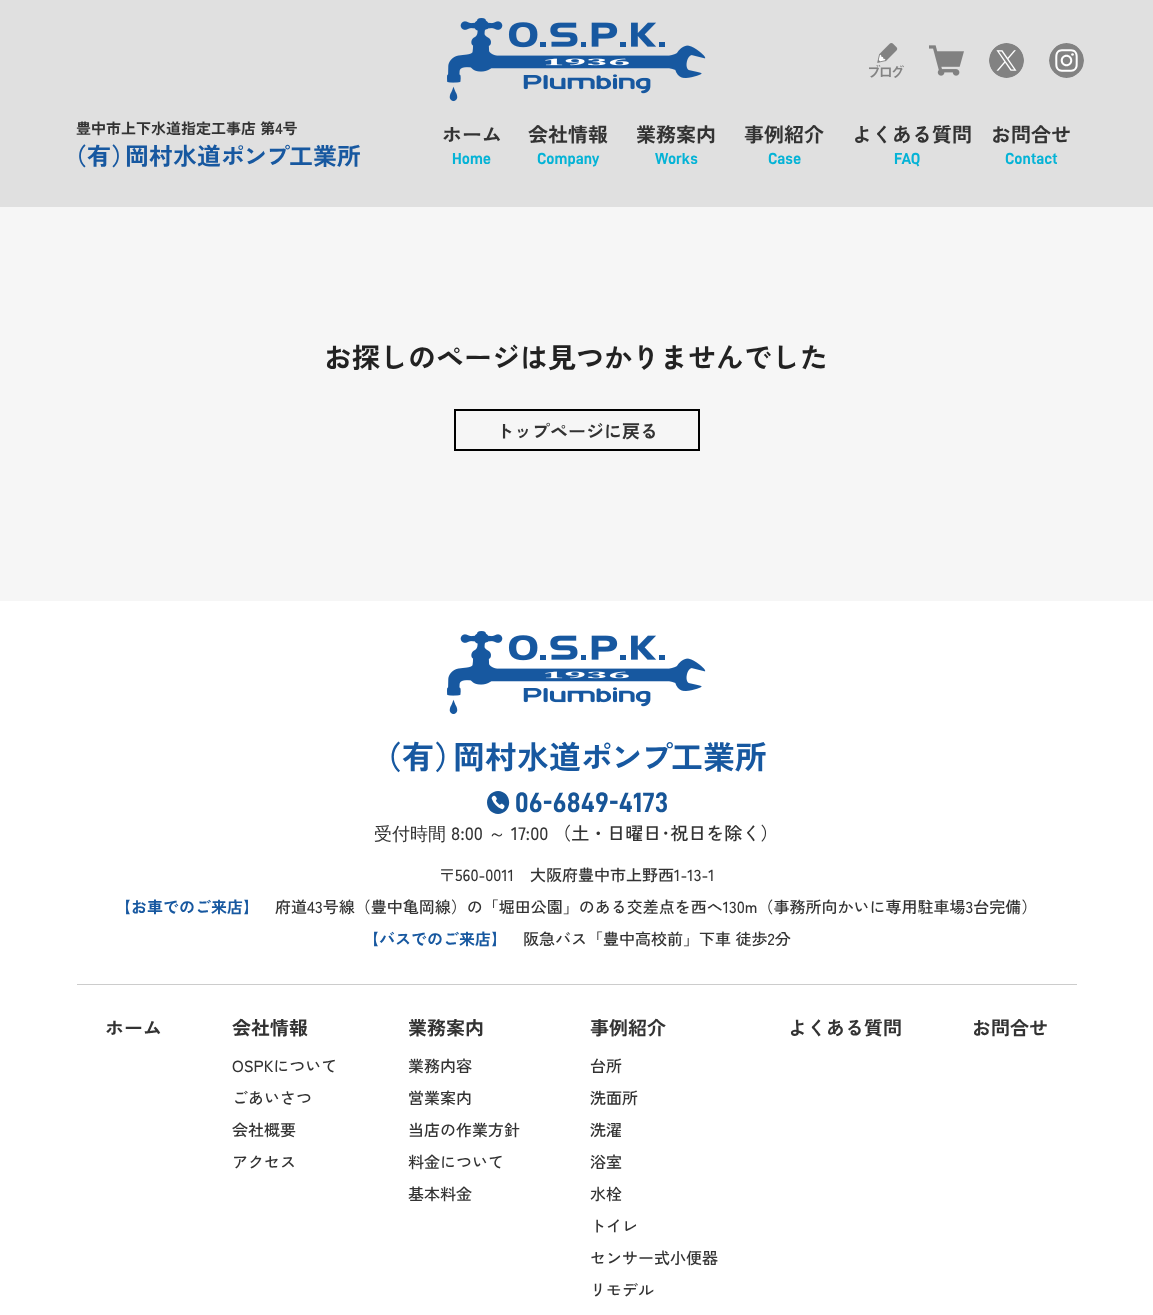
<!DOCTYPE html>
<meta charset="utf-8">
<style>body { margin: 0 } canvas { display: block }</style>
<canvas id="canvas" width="1153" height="1315"></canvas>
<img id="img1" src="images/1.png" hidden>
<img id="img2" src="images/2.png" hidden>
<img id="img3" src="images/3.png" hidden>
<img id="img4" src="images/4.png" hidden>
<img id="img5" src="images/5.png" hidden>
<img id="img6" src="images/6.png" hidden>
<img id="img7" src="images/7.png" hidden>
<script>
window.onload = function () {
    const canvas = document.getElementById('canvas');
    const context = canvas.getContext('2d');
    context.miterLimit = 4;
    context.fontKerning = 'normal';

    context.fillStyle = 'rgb(246, 246, 246)';
    context.fillRect(0, 0, 1153, 1315);
    context.fillStyle = 'rgb(224, 224, 224)';
    context.fillRect(0, 0, 1153, 207);
    context.drawImage(document.getElementById('img1'), 447, 18, 259, 84);
    context.drawImage(document.getElementById('img2'), 869, 43, 35, 35);
    context.drawImage(document.getElementById('img3'), 929, 45, 35, 31);
    context.drawImage(document.getElementById('img4'), 989, 43, 35, 35);
    context.drawImage(document.getElementById('img5'), 1049, 43, 35, 35);
    context.strokeStyle = 'rgb(0, 0, 0)';
    context.lineWidth = 2;
    context.strokeRect(455, 410, 244, 40);
    context.fillStyle = 'rgb(255, 255, 255)';
    context.fillRect(0, 601, 1153, 714);
    context.drawImage(document.getElementById('img6'), 447, 631, 259, 83);
    context.drawImage(document.getElementById('img7'), 487, 791, 180, 23);
    context.fillStyle = 'rgb(204, 204, 204)';
    context.fillRect(77, 984, 1000, 1);
    context.font = 'bold 15px Zen Kaku Gothic New';
    context.fillStyle = 'rgb(51, 51, 51)';
    context.fillText('豊中市上下水道指定工事店 第4号', 76, 134);
    context.font = 'bold 24px Zen Kaku Gothic New';
    context.fillStyle = 'rgb(23, 88, 160)';
    context.fillText('（有', 63, 165);
    context.letterSpacing = '-10px';
    context.fillText('）', 111, 165);
    context.letterSpacing = '0px';
    context.fillText('岡村水道', 125, 165);
    context.letterSpacing = '-1.5px';
    context.fillText('ポンプ', 221, 165);
    context.letterSpacing = '0px';
    context.fillText('工業所', 289, 165);
    context.font = 'bold 20px Zen Kaku Gothic New';
    context.fillStyle = 'rgb(51, 51, 51)';
    context.fillText('ホーム', 442, 142);
    context.font = 'bold 16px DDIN';
    context.fillStyle = 'rgb(5, 179, 214)';
    context.fillText('Home', 452, 164);
    context.font = 'bold 20px Zen Kaku Gothic New';
    context.fillStyle = 'rgb(51, 51, 51)';
    context.fillText('会社情報', 528, 142);
    context.font = 'bold 16px DDIN';
    context.fillStyle = 'rgb(5, 179, 214)';
    context.fillText('Company', 537, 164);
    context.font = 'bold 20px Zen Kaku Gothic New';
    context.fillStyle = 'rgb(51, 51, 51)';
    context.fillText('業務案内', 636, 142);
    context.font = 'bold 16px DDIN';
    context.fillStyle = 'rgb(5, 179, 214)';
    context.fillText('Works', 655, 164);
    context.font = 'bold 20px Zen Kaku Gothic New';
    context.fillStyle = 'rgb(51, 51, 51)';
    context.fillText('事例紹介', 744, 142);
    context.font = 'bold 16px DDIN';
    context.fillStyle = 'rgb(5, 179, 214)';
    context.fillText('Case', 768, 164);
    context.font = 'bold 20px Zen Kaku Gothic New';
    context.fillStyle = 'rgb(51, 51, 51)';
    context.fillText('よくある質問', 852, 142);
    context.font = 'bold 16px DDIN';
    context.fillStyle = 'rgb(5, 179, 214)';
    context.fillText('FAQ', 894, 164);
    context.font = 'bold 20px Zen Kaku Gothic New';
    context.fillStyle = 'rgb(51, 51, 51)';
    context.fillText('お問合せ', 991, 142);
    context.font = 'bold 16px DDIN';
    context.fillStyle = 'rgb(5, 179, 214)';
    context.fillText('Contact', 1005, 164);
    context.font = 'bold 28px Zen Kaku Gothic New';
    context.fillStyle = 'rgb(34, 34, 34)';
    context.fillText('お探しのページは見つかりませんでした', 324, 368);
    context.font = 'bold 18px Zen Kaku Gothic New';
    context.fillStyle = 'rgb(51, 51, 51)';
    context.fillText('トップページに戻る', 496, 438);
    context.font = 'bold 32px Zen Kaku Gothic New';
    context.fillStyle = 'rgb(23, 88, 160)';
    context.fillText('（有', 370, 769);
    context.letterSpacing = '-13px';
    context.fillText('）', 434, 769);
    context.letterSpacing = '0px';
    context.fillText('岡村水道', 453, 769);
    context.letterSpacing = '-2px';
    context.fillText('ポンプ', 581, 769);
    context.letterSpacing = '0px';
    context.fillText('工業所', 671, 769);
    context.font = '500 18px WenQuanYi Zen Hei';
    context.fillStyle = 'rgb(51, 51, 51)';
    context.fillText('受付時間', 374, 840);
    context.font = '500 18px Zen Kaku Gothic New';
    context.fillText('8:00', 451, 840);
    context.font = '500 18px WenQuanYi Zen Hei';
    context.fillText('～', 488, 840);
    context.font = '500 18px Zen Kaku Gothic New';
    context.fillText('17:00 （土・日曜日･祝日を除く）', 511, 840);
    context.font = '500 16px Zen Kaku Gothic New';
    context.fillText('〒560-0011　大阪府豊中市上野西1-13-1', 439, 881);
    context.font = 'bold 16px Zen Kaku Gothic New';
    context.fillStyle = 'rgb(23, 88, 160)';
    context.fillText('【お車でのご来店】', 115, 913);
    context.font = '500 16px Zen Kaku Gothic New';
    context.fillStyle = 'rgb(51, 51, 51)';
    context.fillText('府道43号線（豊中亀岡線）の「堀田公園」のある交差点を西へ130m（事務所向かいに専用駐車場3台完備）', 275, 913);
    context.font = 'bold 16px Zen Kaku Gothic New';
    context.fillStyle = 'rgb(23, 88, 160)';
    context.fillText('【バスでのご来店】', 363, 945);
    context.font = '500 16px Zen Kaku Gothic New';
    context.fillStyle = 'rgb(51, 51, 51)';
    context.fillText('阪急バス「豊中高校前」下車 徒歩2分', 523, 945);
    context.font = 'bold 19px Zen Kaku Gothic New';
    context.fillText('ホーム', 105, 1035);
    context.fillText('会社情報', 232, 1035);
    context.font = '500 16px Zen Kaku Gothic New';
    context.fillText('OSPKについて', 232, 1072);
    context.fillText('ごあいさつ', 232, 1104);
    context.fillText('会社概要', 232, 1136);
    context.fillText('アクセス', 232, 1168);
    context.font = 'bold 19px Zen Kaku Gothic New';
    context.fillText('業務案内', 408, 1035);
    context.font = '500 16px Zen Kaku Gothic New';
    context.fillText('業務内容', 408, 1072);
    context.fillText('営業案内', 408, 1104);
    context.fillText('当店の作業方針', 408, 1136);
    context.fillText('料金について', 408, 1168);
    context.fillText('基本料金', 408, 1200);
    context.font = 'bold 19px Zen Kaku Gothic New';
    context.fillText('事例紹介', 590, 1035);
    context.font = '500 16px Zen Kaku Gothic New';
    context.fillText('台所', 590, 1072);
    context.fillText('洗面所', 590, 1104);
    context.fillText('洗濯', 590, 1136);
    context.fillText('浴室', 590, 1168);
    context.fillText('水栓', 590, 1200);
    context.fillText('トイレ', 590, 1232);
    context.fillText('センサー式小便器', 590, 1264);
    context.fillText('リモデル', 590, 1296);
    context.font = 'bold 19px Zen Kaku Gothic New';
    context.fillText('よくある質問', 788, 1035);
    context.fillText('お問合せ', 972, 1035);
};
</script>
